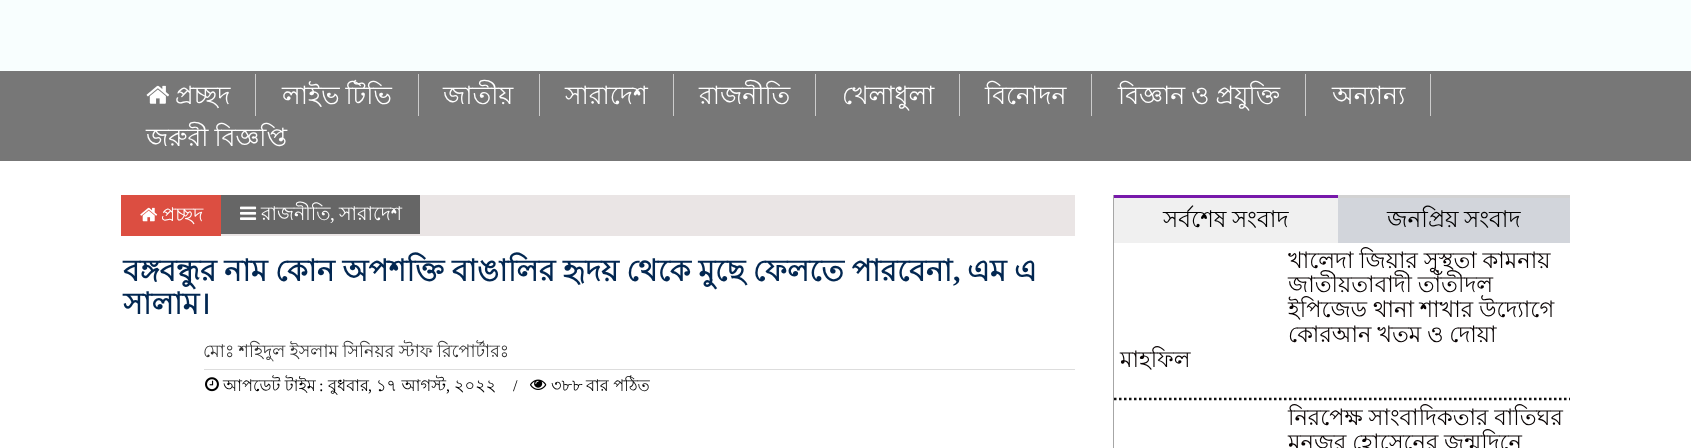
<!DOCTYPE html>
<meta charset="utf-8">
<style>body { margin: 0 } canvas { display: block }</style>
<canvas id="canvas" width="1691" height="448"></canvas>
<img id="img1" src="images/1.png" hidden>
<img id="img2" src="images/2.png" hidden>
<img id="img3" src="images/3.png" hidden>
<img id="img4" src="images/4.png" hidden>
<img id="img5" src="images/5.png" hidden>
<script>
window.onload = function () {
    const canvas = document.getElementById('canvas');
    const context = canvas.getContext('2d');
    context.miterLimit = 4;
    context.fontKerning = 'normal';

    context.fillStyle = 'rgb(255, 255, 255)';
    context.fillRect(0, 0, 1691, 448);
    context.fillStyle = 'rgb(248, 254, 254)';
    context.fillRect(0, 0, 1691, 71);
    context.fillStyle = 'rgb(119, 119, 119)';
    context.fillRect(0, 71, 1691, 90);
    context.fillStyle = 'rgb(204, 204, 204)';
    context.fillRect(255, 74, 1, 42);
    context.drawImage(document.getElementById('img1'), 146, 85, 23, 19);
    context.fillRect(418, 74, 1, 42);
    context.fillRect(539, 74, 1, 42);
    context.fillRect(673, 74, 1, 42);
    context.fillRect(815, 74, 1, 42);
    context.fillRect(959, 74, 1, 42);
    context.fillRect(1091, 74, 1, 42);
    context.fillRect(1305, 74, 1, 42);
    context.fillRect(1430, 74, 1, 42);
    context.fillStyle = 'rgb(234, 229, 229)';
    context.fillRect(221, 195, 854, 41);
    context.fillStyle = 'rgb(220, 78, 65)';
    context.fillRect(121, 195, 100, 41);
    context.drawImage(document.getElementById('img2'), 140, 207, 18, 15);
    context.fillStyle = 'rgb(102, 102, 102)';
    context.fillRect(221, 195, 199, 39);
    context.drawImage(document.getElementById('img3'), 240, 206, 17, 14);
    context.fillStyle = 'rgb(221, 221, 221)';
    context.fillRect(204, 369, 871, 1);
    context.drawImage(document.getElementById('img4'), 205, 377, 14, 15);
    context.drawImage(document.getElementById('img5'), 530, 379, 17, 11);
    context.fillStyle = 'rgb(166, 166, 166)';
    context.fillRect(1113, 195, 1, 253);
    context.fillStyle = 'rgb(210, 213, 219)';
    context.fillRect(1338, 198, 232, 45);
    context.fillStyle = 'rgb(240, 240, 240)';
    context.fillRect(1114, 198, 224, 45);
    context.fillStyle = 'rgb(119, 25, 170)';
    context.fillRect(1114, 195, 224, 3);
    context.fillStyle = 'rgb(210, 210, 210)';
    context.fillRect(1338, 195, 232, 3);
    context.beginPath();
    context.moveTo(1114, 399);
    context.lineTo(1570, 399);
    context.strokeStyle = 'rgb(16, 16, 16)';
    context.lineWidth = 2.5;
    context.setLineDash([2.5, 2.5]);
    context.stroke();
    context.font = '25px Lohit Bengali';
    context.fillStyle = 'rgb(255, 255, 255)';
    context.fillText('প্রচ্ছদ', 175, 104);
    context.wordSpacing = '-1px';
    context.fillText('লাইভ টিভি', 282, 104);
    context.wordSpacing = '0px';
    context.fillText('জাতীয়', 443, 104);
    context.fillText('সারাদেশ', 565, 104);
    context.fillText('রাজনীতি', 699, 104);
    context.fillText('খেলাধুলা', 842, 104);
    context.fillText('বিনোদন', 985, 104);
    context.wordSpacing = '-1px';
    context.fillText('বিজ্ঞান ও প্রযুক্তি', 1118, 104);
    context.wordSpacing = '0px';
    context.fillText('অন্যান্য', 1332, 104);
    context.wordSpacing = '-1px';
    context.fillText('জরুরী বিজ্ঞপ্তি', 146, 146);
    context.wordSpacing = '0px';
    context.font = '19px Lohit Bengali';
    context.fillText('প্রচ্ছদ', 161, 221);
    context.fillText('রাজনীতি', 261, 220);
    context.font = '19px Liberation Serif';
    context.fillText(',', 330, 220);
    context.font = '19px Lohit Bengali';
    context.fillText('সারাদেশ', 339, 220);
    context.wordSpacing = '-0.75px';
    context.font = 'bold 30px Lohit Bengali';
    context.fillStyle = 'rgb(2, 39, 81)';
    context.fillText('বঙ্গবন্ধুর নাম কোন অপশক্তি বাঙালির হৃদয় থেকে মুছে ফেলতে পারবেনা', 123, 281);
    context.wordSpacing = '0px';
    context.font = 'bold 30px Liberation Serif';
    context.fillText(',', 953, 281);
    context.wordSpacing = '-0.75px';
    context.font = 'bold 30px Lohit Bengali';
    context.fillText('এম এ', 967, 281);
    context.wordSpacing = '0px';
    context.fillText('সালাম।', 123, 314);
    context.wordSpacing = '-0.5px';
    context.font = '17.5px Lohit Bengali';
    context.fillStyle = 'rgb(51, 51, 51)';
    context.fillText('মোঃ শহিদুল ইসলাম সিনিয়র স্টাফ রিপোর্টারঃ', 203, 357);
    context.wordSpacing = '0px';
    context.font = '16.25px Lohit Bengali';
    context.fillStyle = 'rgb(0, 0, 0)';
    context.fillText('আপডেট টাইম', 223, 391);
    context.fillText('১৭ আগস্ট', 376, 391);
    context.fillText('২০২২', 454, 391);
    context.font = '16.25px Liberation Serif';
    context.fillText('/', 513, 391);
    context.fillText(':', 319, 391);
    context.font = '16.25px Lohit Bengali';
    context.fillText('বুধবার', 328, 391);
    context.font = '16.25px Liberation Serif';
    context.fillText(',', 368, 391);
    context.fillText(',', 446, 391);
    context.font = '16.25px Lohit Bengali';
    context.fillText('৩৮৮', 551, 391);
    context.fillText('বার পঠিত', 586, 391);
    context.wordSpacing = '-1px';
    context.font = '23px Lohit Bengali';
    context.fillText('সর্বশেষ সংবাদ', 1163, 227);
    context.fillText('জনপ্রিয় সংবাদ', 1387, 227);
    context.wordSpacing = '-0.5px';
    context.font = '22.5px Lohit Bengali';
    context.fillStyle = 'rgb(8, 2, 2)';
    context.fillText('খালেদা জিয়ার সুস্থতা কামনায়', 1288, 268);
    context.fillText('জাতীয়তাবাদী তাঁতীদল', 1288, 292);
    context.fillText('ইপিজেড থানা শাখার উদ্যোগে', 1288, 317);
    context.fillText('কোরআন খতম ও দোয়া', 1288, 342);
    context.wordSpacing = '0px';
    context.fillText('মাহফিল', 1120, 367);
    context.wordSpacing = '-0.5px';
    context.fillText('নিরপেক্ষ সাংবাদিকতার বাতিঘর', 1288, 425);
    context.fillText('মনজুর হোসেনের জন্মদিনে', 1288, 450);
};
</script>
